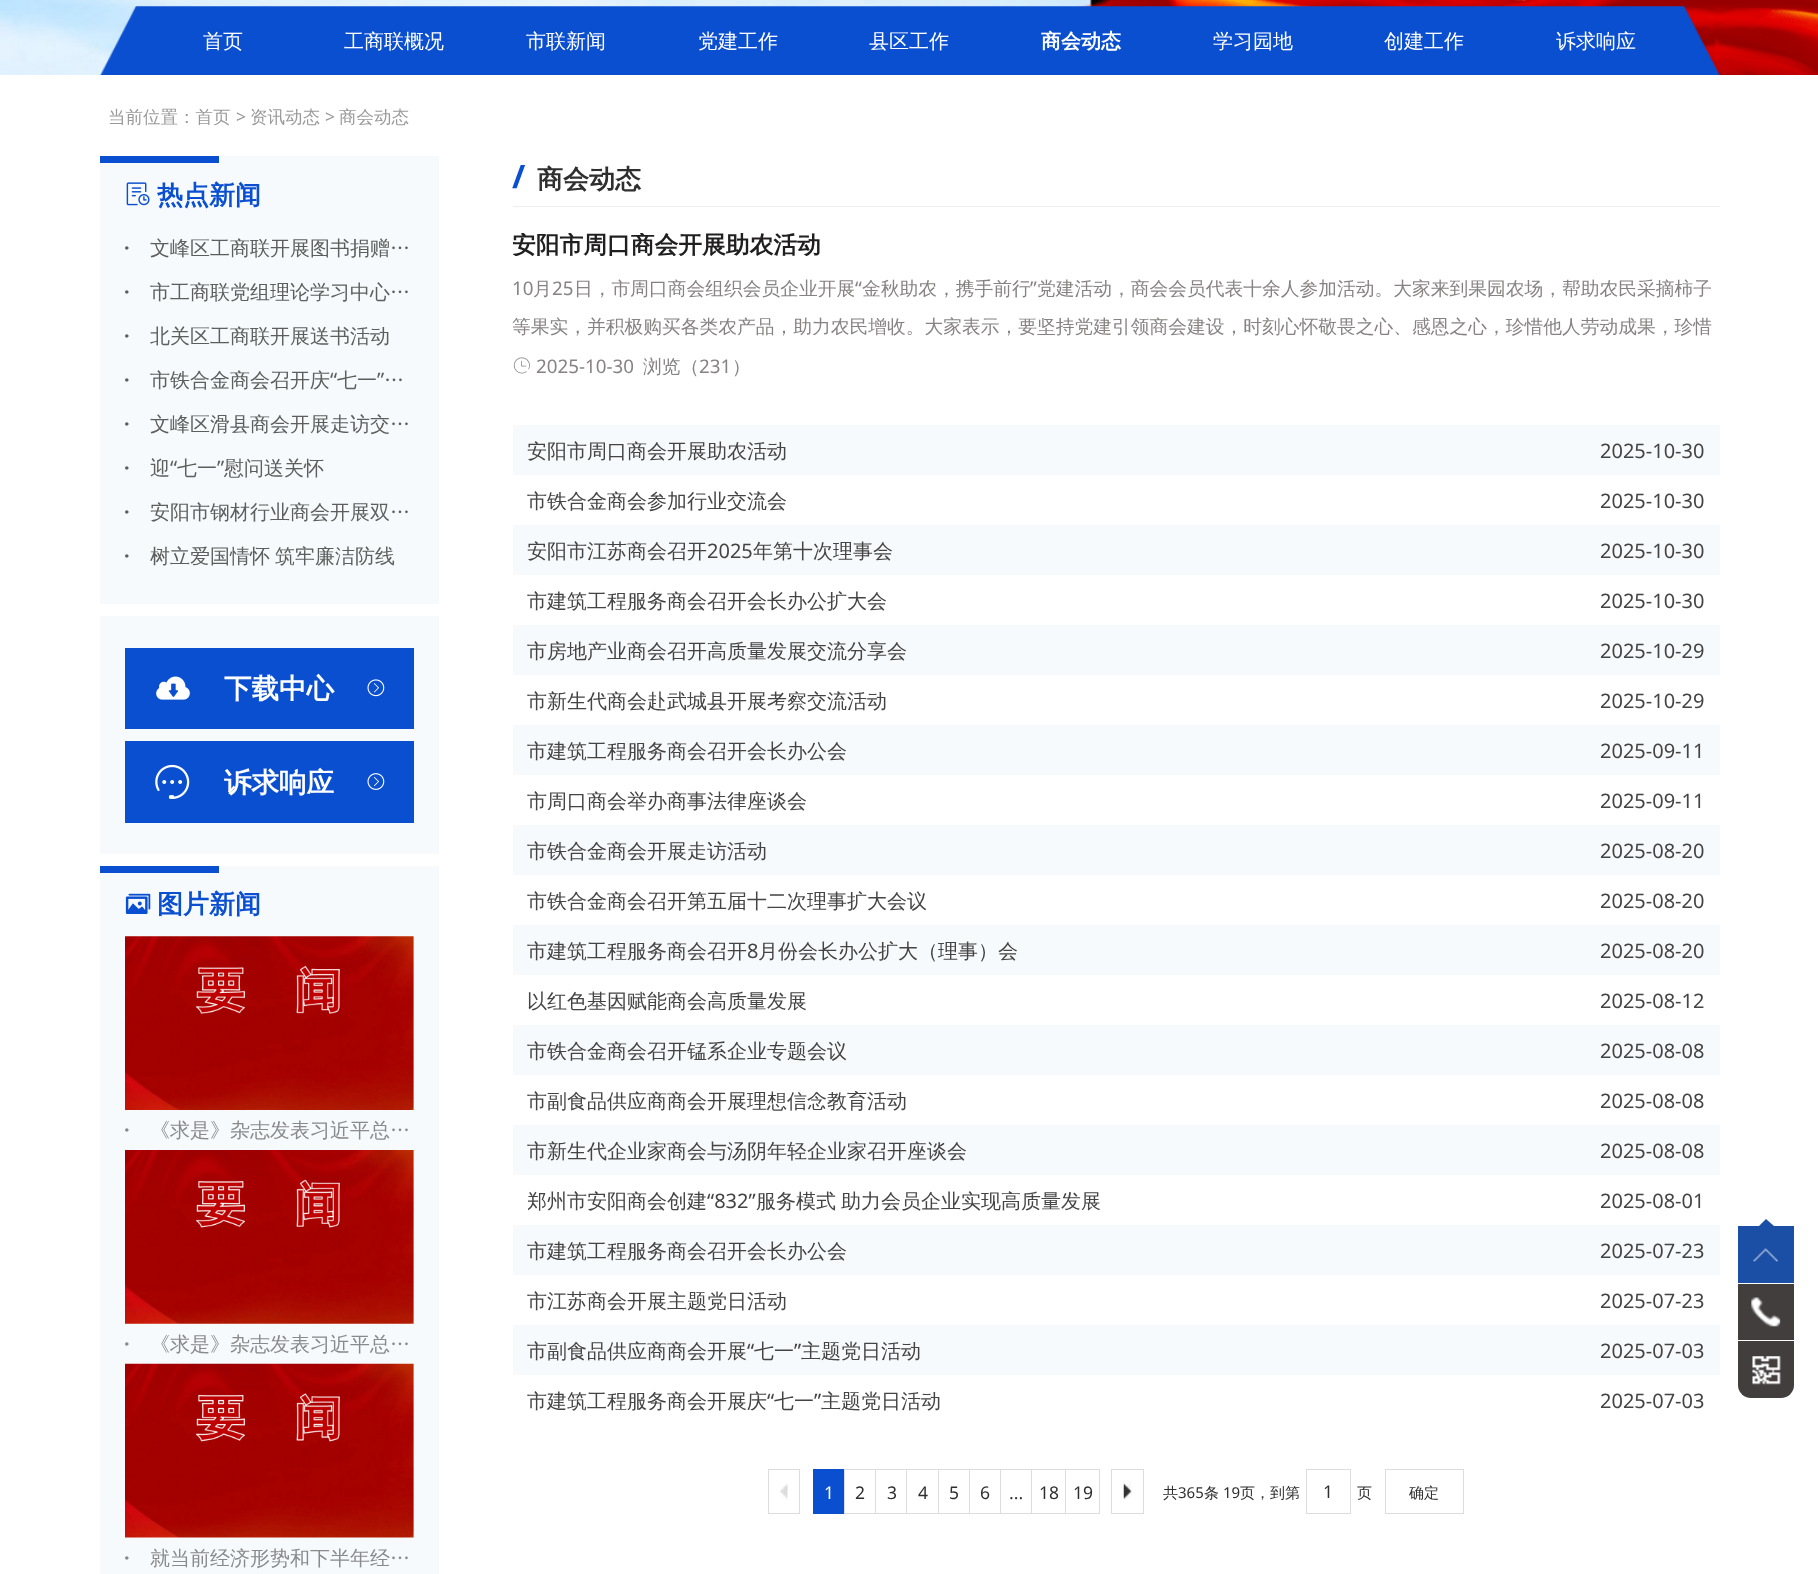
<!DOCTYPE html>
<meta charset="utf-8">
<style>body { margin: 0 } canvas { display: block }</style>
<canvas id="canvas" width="1818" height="1574"></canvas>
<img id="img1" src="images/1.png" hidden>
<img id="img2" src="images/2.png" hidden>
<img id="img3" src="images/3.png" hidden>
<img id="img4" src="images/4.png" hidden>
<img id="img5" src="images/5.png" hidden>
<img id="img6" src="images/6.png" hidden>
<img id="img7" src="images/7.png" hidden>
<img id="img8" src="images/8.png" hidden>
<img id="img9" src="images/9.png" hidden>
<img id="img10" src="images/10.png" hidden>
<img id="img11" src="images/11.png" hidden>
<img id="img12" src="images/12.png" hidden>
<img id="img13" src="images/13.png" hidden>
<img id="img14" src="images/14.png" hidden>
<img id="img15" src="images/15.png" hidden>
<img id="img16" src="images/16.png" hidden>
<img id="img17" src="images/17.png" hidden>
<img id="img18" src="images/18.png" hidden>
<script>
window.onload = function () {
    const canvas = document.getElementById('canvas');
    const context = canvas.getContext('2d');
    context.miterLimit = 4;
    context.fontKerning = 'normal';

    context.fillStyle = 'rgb(255, 255, 255)';
    context.fillRect(0, 0, 1818, 1574);
    context.drawImage(document.getElementById('img1'), 0, 0, 1098, 75);
    context.drawImage(document.getElementById('img2'), 1077, 0, 741, 75);
    context.drawImage(document.getElementById('img3'), 100, 6, 1620, 69);
    context.fillStyle = 'rgb(247, 250, 252)';
    context.fillRect(100, 156, 339, 448);
    context.fillStyle = 'rgb(10, 79, 208)';
    context.fillRect(100, 156, 119, 7);
    context.drawImage(document.getElementById('img4'), 126, 182, 24, 24);
    context.fillStyle = 'rgb(247, 250, 252)';
    context.fillRect(100, 616, 339, 238);
    context.fillStyle = 'rgb(10, 79, 208)';
    context.fillRect(125, 648, 289, 81);
    context.drawImage(document.getElementById('img5'), 156, 676, 34, 24);
    context.drawImage(document.getElementById('img6'), 367, 679, 18, 18);
    context.fillRect(125, 741, 289, 82);
    context.drawImage(document.getElementById('img7'), 155, 764, 35, 35);
    context.drawImage(document.getElementById('img8'), 367, 773, 18, 17);
    context.fillStyle = 'rgb(247, 250, 252)';
    context.fillRect(100, 866, 339, 708);
    context.fillStyle = 'rgb(10, 79, 208)';
    context.fillRect(100, 866, 119, 7);
    context.drawImage(document.getElementById('img9'), 125, 893, 26, 21);
    context.drawImage(document.getElementById('img10'), 125, 936, 289, 174);
    context.drawImage(document.getElementById('img11'), 125, 1150, 289, 174);
    context.drawImage(document.getElementById('img12'), 125, 1363, 289, 175);
    context.fillStyle = 'rgb(237, 237, 237)';
    context.fillRect(513, 206, 1207, 1);
    context.drawImage(document.getElementById('img13'), 513, 357, 17, 17);
    context.fillStyle = 'rgb(247, 250, 252)';
    context.fillRect(513, 425, 1207, 50);
    context.fillRect(513, 525, 1207, 50);
    context.fillRect(513, 625, 1207, 50);
    context.fillRect(513, 725, 1207, 50);
    context.fillRect(513, 825, 1207, 50);
    context.fillRect(513, 925, 1207, 50);
    context.fillRect(513, 1025, 1207, 50);
    context.fillRect(513, 1125, 1207, 50);
    context.fillRect(513, 1225, 1207, 50);
    context.fillRect(513, 1325, 1207, 50);
    context.drawImage(document.getElementById('img14'), 780, 1483, 8, 17);
    context.strokeStyle = 'rgb(221, 221, 221)';
    context.strokeRect(768.5, 1469.5, 31, 44);
    context.fillStyle = 'rgb(10, 79, 208)';
    context.fillRect(813, 1469, 31, 45);
    context.strokeRect(844.5, 1469.5, 31, 44);
    context.strokeRect(875.5, 1469.5, 32, 44);
    context.fillStyle = 'rgb(255, 255, 255)';
    context.fillRect(907, 1470, 1, 43);
    context.strokeRect(906.5, 1469.5, 32, 44);
    context.strokeRect(938.5, 1469.5, 31, 44);
    context.strokeRect(969.5, 1469.5, 31, 44);
    context.strokeRect(1000.5, 1469.5, 32, 44);
    context.fillRect(1032, 1470, 1, 43);
    context.strokeRect(1031.5, 1469.5, 34, 44);
    context.strokeRect(1065.5, 1469.5, 34, 44);
    context.drawImage(document.getElementById('img15'), 1123, 1482, 9, 18);
    context.strokeRect(1111.5, 1469.5, 32, 44);
    context.strokeRect(1306.5, 1469.5, 44, 44);
    context.strokeRect(1385.5, 1469.5, 78, 44);
    context.fillStyle = 'rgb(27, 79, 166)';
    context.beginPath();
    context.moveTo(1774, 1226);
    context.lineTo(1759, 1226);
    context.lineTo(1766, 1219);
    context.closePath();
    context.fill();
    context.fillRect(1738, 1226, 56, 57);
    context.drawImage(document.getElementById('img16'), 1753, 1248, 25, 14);
    context.fillStyle = 'rgb(66, 62, 61)';
    context.fillRect(1738, 1284, 56, 56);
    context.drawImage(document.getElementById('img17'), 1751, 1297, 30, 30);
    context.beginPath();
    context.roundRect(1738, 1341, 56, 57, [0, 0, 13, 13]);
    context.fill();
    context.drawImage(document.getElementById('img18'), 1752, 1356, 29, 29);
    context.font = '500 20px WenQuanYi Zen Hei';
    context.fillStyle = 'rgb(255, 255, 255)';
    context.fillText('首页', 203, 48);
    context.fillText('工商联概况', 344, 48);
    context.fillText('市联新闻', 526, 48);
    context.fillText('党建工作', 698, 48);
    context.fillText('县区工作', 869, 48);
    context.font = 'bold 20px WenQuanYi Zen Hei';
    context.fillText('商会动态', 1041, 48);
    context.font = '500 20px WenQuanYi Zen Hei';
    context.fillText('学习园地', 1213, 48);
    context.fillText('创建工作', 1384, 48);
    context.fillText('诉求响应', 1556, 48);
    context.font = '500 17.5px WenQuanYi Zen Hei';
    context.fillStyle = 'rgb(153, 153, 153)';
    context.fillText('当前位置：首页', 108, 123);
    context.font = '17.5px Noto Sans';
    context.fillText('>', 236, 123);
    context.font = '500 17.5px WenQuanYi Zen Hei';
    context.fillText('资讯动态', 250, 123);
    context.font = '17.5px Noto Sans';
    context.fillText('>', 325, 123);
    context.font = '500 17.5px WenQuanYi Zen Hei';
    context.fillText('商会动态', 339, 123);
    context.font = 'bold 26px WenQuanYi Zen Hei';
    context.fillStyle = 'rgb(10, 79, 208)';
    context.fillText('热点新闻', 157, 204);
    context.font = 'bold 20px Noto Sans';
    context.fillStyle = 'rgb(93, 95, 95)';
    context.fillText('·', 124, 255);
    context.font = '500 20px WenQuanYi Zen Hei';
    context.fillText('文峰区工商联开展图书捐赠…', 150, 255);
    context.font = 'bold 20px Noto Sans';
    context.fillText('·', 124, 299);
    context.wordSpacing = '-1px';
    context.font = '500 20px WenQuanYi Zen Hei';
    context.fillText('市工商联党组理论学习中心…', 150, 299);
    context.wordSpacing = '0px';
    context.font = 'bold 20px Noto Sans';
    context.fillText('·', 124, 343);
    context.font = '500 20px WenQuanYi Zen Hei';
    context.fillText('北关区工商联开展送书活动', 150, 343);
    context.fillText('市铁合金商会召开庆', 150, 387);
    context.font = '20px Noto Sans';
    context.fillText('“', 330, 387);
    context.font = '500 20px WenQuanYi Zen Hei';
    context.fillText('七一', 337, 387);
    context.font = '20px Noto Sans';
    context.fillText('”', 377, 387);
    context.font = 'bold 20px Noto Sans';
    context.fillText('·', 124, 387);
    context.font = '500 20px WenQuanYi Zen Hei';
    context.fillText('…', 384, 387);
    context.font = 'bold 20px Noto Sans';
    context.fillText('·', 124, 431);
    context.font = '500 20px WenQuanYi Zen Hei';
    context.fillText('文峰区滑县商会开展走访交…', 150, 431);
    context.fillText('迎', 150, 475);
    context.font = '20px Noto Sans';
    context.fillText('“', 170, 475);
    context.font = '500 20px WenQuanYi Zen Hei';
    context.fillText('七一', 177, 475);
    context.font = '20px Noto Sans';
    context.fillText('”', 217, 475);
    context.font = '500 20px WenQuanYi Zen Hei';
    context.fillText('慰问送关怀', 224, 475);
    context.font = 'bold 20px Noto Sans';
    context.fillText('·', 124, 475);
    context.fillText('·', 124, 519);
    context.font = '500 20px WenQuanYi Zen Hei';
    context.fillText('安阳市钢材行业商会开展双…', 150, 519);
    context.font = 'bold 20px Noto Sans';
    context.fillText('·', 124, 563);
    context.font = '500 20px WenQuanYi Zen Hei';
    context.fillText('树立爱国情怀', 150, 563);
    context.fillText('筑牢廉洁防线', 275, 563);
    context.font = 'bold 27.5px WenQuanYi Zen Hei';
    context.fillStyle = 'rgb(255, 255, 255)';
    context.fillText('下载中心', 224, 698);
    context.fillText('诉求响应', 224, 792);
    context.font = 'bold 26px WenQuanYi Zen Hei';
    context.fillStyle = 'rgb(10, 79, 208)';
    context.fillText('图片新闻', 157, 913);
    context.font = 'bold 20px Noto Sans';
    context.fillStyle = 'rgb(136, 138, 139)';
    context.fillText('·', 124, 1137);
    context.font = '500 20px WenQuanYi Zen Hei';
    context.fillText('《求是》杂志发表习近平总…', 150, 1137);
    context.font = 'bold 20px Noto Sans';
    context.fillText('·', 124, 1351);
    context.font = '500 20px WenQuanYi Zen Hei';
    context.fillText('《求是》杂志发表习近平总…', 150, 1351);
    context.font = 'bold 20px Noto Sans';
    context.fillText('·', 124, 1565);
    context.wordSpacing = '-1px';
    context.font = '500 20px WenQuanYi Zen Hei';
    context.fillText('就当前经济形势和下半年经…', 150, 1565);
    context.wordSpacing = '0px';
    context.font = 'bold 32px Noto Sans';
    context.fillStyle = 'rgb(10, 79, 208)';
    context.fillText('/', 512, 188);
    context.font = 'bold 26px WenQuanYi Zen Hei';
    context.fillStyle = 'rgb(47, 47, 47)';
    context.fillText('商会动态', 537, 188);
    context.save();
    context.beginPath();
    context.rect(513, 233, 1207, 23);
    context.clip();
    context.font = 'bold 23.75px WenQuanYi Zen Hei';
    context.fillStyle = 'rgb(32, 30, 30)';
    context.fillText('安阳市周口商会开展助农活动', 512, 253);
    context.restore();
    context.font = '18.75px Noto Sans';
    context.fillStyle = 'rgb(135, 131, 131)';
    context.fillText('10', 512, 295);
    context.font = '500 18.75px WenQuanYi Zen Hei';
    context.fillText('月', 533, 295);
    context.font = '18.75px Noto Sans';
    context.fillText('25', 552, 295);
    context.font = '500 18.75px WenQuanYi Zen Hei';
    context.fillText('日，市周口商会组织会员企业开展', 574, 295);
    context.font = '18.75px Noto Sans';
    context.fillText('“', 855, 295);
    context.font = '500 18.75px WenQuanYi Zen Hei';
    context.fillText('金秋助农，携手前行', 862, 295);
    context.font = '18.75px Noto Sans';
    context.fillText('”', 1030, 295);
    context.font = '500 18.75px WenQuanYi Zen Hei';
    context.fillText('党建活动，商会会员代表十余人参加活动。大家来到果园农场，帮助农民采摘柿子', 1037, 295);
    context.fillText('等果实，并积极购买各类农产品，助力农民增收。大家表示，要坚持党建引领商会建设，时刻心怀敬畏之心、感恩之心，珍惜他人劳动成果，珍惜', 512, 333);
    context.font = '18.75px Noto Sans';
    context.fillText('2025-10-30', 536, 373);
    context.font = '500 18.75px WenQuanYi Zen Hei';
    context.fillText('浏览（', 643, 373);
    context.font = '18.75px Noto Sans';
    context.fillText('231', 699, 373);
    context.font = '500 18.75px WenQuanYi Zen Hei';
    context.fillText('）', 732, 373);
    context.font = '500 20px WenQuanYi Zen Hei';
    context.fillStyle = 'rgb(68, 68, 68)';
    context.fillText('安阳市周口商会开展助农活动', 527, 458);
    context.font = '20px Noto Sans';
    context.fillText('2025-10-30', 1600, 458);
    context.font = '500 20px WenQuanYi Zen Hei';
    context.fillText('市铁合金商会参加行业交流会', 527, 508);
    context.font = '20px Noto Sans';
    context.fillText('2025-10-30', 1600, 508);
    context.font = '500 20px WenQuanYi Zen Hei';
    context.fillText('安阳市江苏商会召开', 527, 558);
    context.font = '20px Noto Sans';
    context.fillText('2025', 707, 558);
    context.font = '500 20px WenQuanYi Zen Hei';
    context.fillText('年第十次理事会', 753, 558);
    context.font = '20px Noto Sans';
    context.fillText('2025-10-30', 1600, 558);
    context.font = '500 20px WenQuanYi Zen Hei';
    context.fillText('市建筑工程服务商会召开会长办公扩大会', 527, 608);
    context.font = '20px Noto Sans';
    context.fillText('2025-10-30', 1600, 608);
    context.font = '500 20px WenQuanYi Zen Hei';
    context.fillText('市房地产业商会召开高质量发展交流分享会', 527, 658);
    context.font = '20px Noto Sans';
    context.fillText('2025-10-29', 1600, 658);
    context.font = '500 20px WenQuanYi Zen Hei';
    context.fillText('市新生代商会赴武城县开展考察交流活动', 527, 708);
    context.font = '20px Noto Sans';
    context.fillText('2025-10-29', 1600, 708);
    context.font = '500 20px WenQuanYi Zen Hei';
    context.fillText('市建筑工程服务商会召开会长办公会', 527, 758);
    context.font = '20px Noto Sans';
    context.fillText('2025-09-11', 1600, 758);
    context.font = '500 20px WenQuanYi Zen Hei';
    context.fillText('市周口商会举办商事法律座谈会', 527, 808);
    context.font = '20px Noto Sans';
    context.fillText('2025-09-11', 1600, 808);
    context.font = '500 20px WenQuanYi Zen Hei';
    context.fillText('市铁合金商会开展走访活动', 527, 858);
    context.font = '20px Noto Sans';
    context.fillText('2025-08-20', 1600, 858);
    context.font = '500 20px WenQuanYi Zen Hei';
    context.fillText('市铁合金商会召开第五届十二次理事扩大会议', 527, 908);
    context.font = '20px Noto Sans';
    context.fillText('2025-08-20', 1600, 908);
    context.font = '500 20px WenQuanYi Zen Hei';
    context.fillText('市建筑工程服务商会召开', 527, 958);
    context.font = '20px Noto Sans';
    context.fillText('8', 747, 958);
    context.font = '500 20px WenQuanYi Zen Hei';
    context.fillText('月份会长办公扩大（理事）会', 758, 958);
    context.font = '20px Noto Sans';
    context.fillText('2025-08-20', 1600, 958);
    context.font = '500 20px WenQuanYi Zen Hei';
    context.fillText('以红色基因赋能商会高质量发展', 527, 1008);
    context.font = '20px Noto Sans';
    context.fillText('2025-08-12', 1600, 1008);
    context.font = '500 20px WenQuanYi Zen Hei';
    context.fillText('市铁合金商会召开锰系企业专题会议', 527, 1058);
    context.font = '20px Noto Sans';
    context.fillText('2025-08-08', 1600, 1058);
    context.font = '500 20px WenQuanYi Zen Hei';
    context.fillText('市副食品供应商商会开展理想信念教育活动', 527, 1108);
    context.font = '20px Noto Sans';
    context.fillText('2025-08-08', 1600, 1108);
    context.font = '500 20px WenQuanYi Zen Hei';
    context.fillText('市新生代企业家商会与汤阴年轻企业家召开座谈会', 527, 1158);
    context.font = '20px Noto Sans';
    context.fillText('2025-08-08', 1600, 1158);
    context.save();
    context.beginPath();
    context.rect(528, 1175, 783, 50);
    context.clip();
    context.font = '500 20px WenQuanYi Zen Hei';
    context.fillText('郑州市安阳商会创建', 527, 1208);
    context.restore();
    context.fillText('“832”', 707, 1208);
    context.wordSpacing = '-1px';
    context.font = '500 20px WenQuanYi Zen Hei';
    context.fillText('服务模式 助力会员企业实现高质量发展', 756, 1208);
    context.wordSpacing = '0px';
    context.font = '20px Noto Sans';
    context.fillText('2025-08-01', 1600, 1208);
    context.font = '500 20px WenQuanYi Zen Hei';
    context.fillText('市建筑工程服务商会召开会长办公会', 527, 1258);
    context.font = '20px Noto Sans';
    context.fillText('2025-07-23', 1600, 1258);
    context.font = '500 20px WenQuanYi Zen Hei';
    context.fillText('市江苏商会开展主题党日活动', 527, 1308);
    context.font = '20px Noto Sans';
    context.fillText('2025-07-23', 1600, 1308);
    context.font = '500 20px WenQuanYi Zen Hei';
    context.fillText('市副食品供应商商会开展', 527, 1358);
    context.font = '20px Noto Sans';
    context.fillText('“', 747, 1358);
    context.font = '500 20px WenQuanYi Zen Hei';
    context.fillText('七一', 754, 1358);
    context.font = '20px Noto Sans';
    context.fillText('”', 794, 1358);
    context.font = '500 20px WenQuanYi Zen Hei';
    context.fillText('主题党日活动', 801, 1358);
    context.font = '20px Noto Sans';
    context.fillText('2025-07-03', 1600, 1358);
    context.font = '500 20px WenQuanYi Zen Hei';
    context.fillText('市建筑工程服务商会开展庆', 527, 1408);
    context.font = '20px Noto Sans';
    context.fillText('“', 767, 1408);
    context.font = '500 20px WenQuanYi Zen Hei';
    context.fillText('七一', 774, 1408);
    context.font = '20px Noto Sans';
    context.fillText('”', 814, 1408);
    context.font = '500 20px WenQuanYi Zen Hei';
    context.fillText('主题党日活动', 821, 1408);
    context.font = '20px Noto Sans';
    context.fillText('2025-07-03', 1600, 1408);
    context.font = '17.5px Noto Sans';
    context.fillStyle = 'rgb(255, 255, 255)';
    context.fillText('1', 824, 1499);
    context.fillStyle = 'rgb(47, 47, 47)';
    context.fillText('2', 855, 1499);
    context.fillText('3', 887, 1499);
    context.fillText('4', 918, 1499);
    context.fillText('5', 949, 1499);
    context.fillText('6', 980, 1499);
    context.fillText('...', 1009, 1499);
    context.fillText('18', 1039, 1499);
    context.fillText('19', 1073, 1499);
    context.font = '500 15px WenQuanYi Zen Hei';
    context.fillText('共', 1163, 1498);
    context.font = '15px Noto Sans';
    context.fillText('365', 1178, 1498);
    context.font = '500 15px WenQuanYi Zen Hei';
    context.fillText('条', 1204, 1498);
    context.font = '15px Noto Sans';
    context.fillText('19', 1223, 1498);
    context.font = '500 15px WenQuanYi Zen Hei';
    context.fillText('页，到第', 1240, 1498);
    context.font = '17.5px Noto Sans';
    context.fillText('1', 1323, 1498);
    context.font = '500 15px WenQuanYi Zen Hei';
    context.fillText('页', 1357, 1498);
    context.fillText('确定', 1409, 1498);
};
</script>
